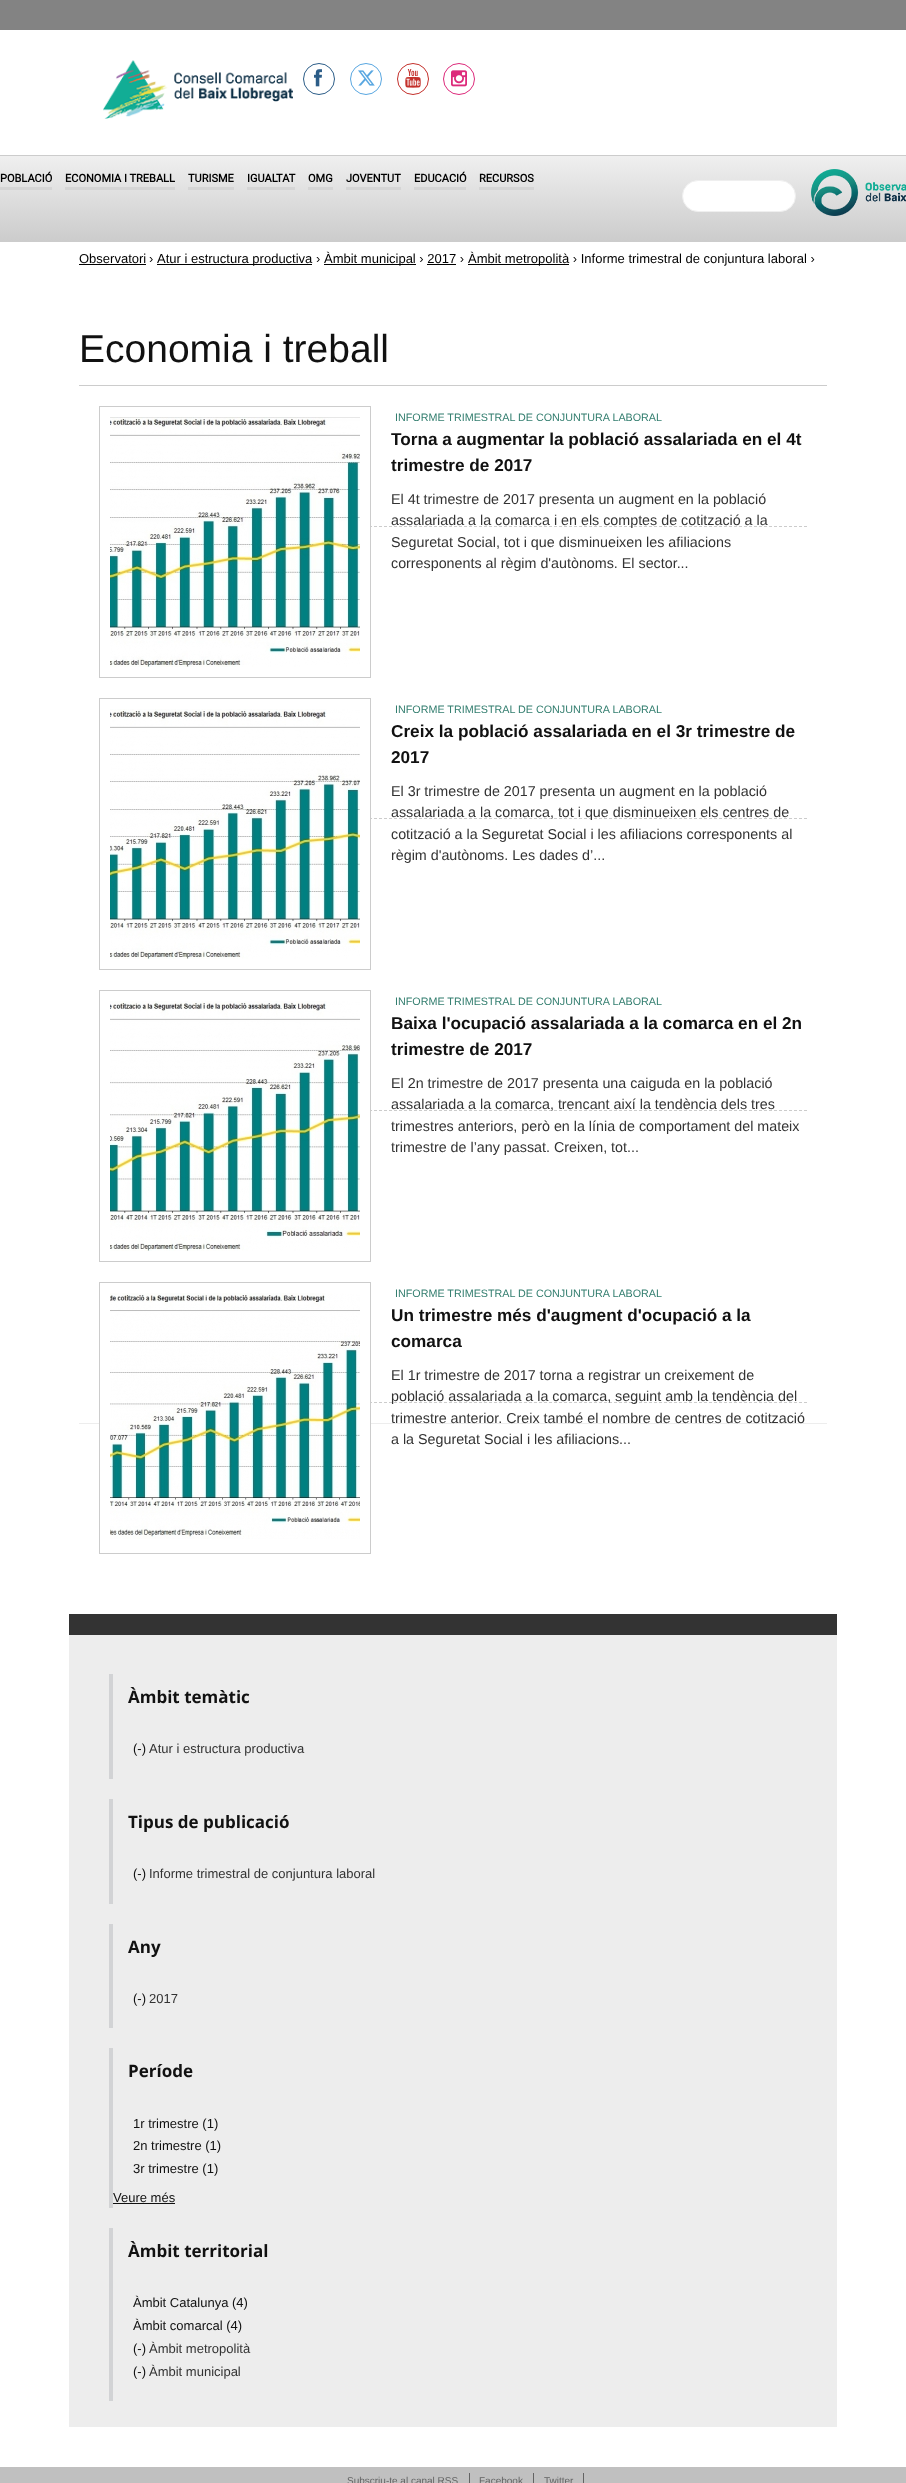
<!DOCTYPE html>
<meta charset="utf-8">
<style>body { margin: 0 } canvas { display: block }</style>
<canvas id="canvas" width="906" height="2483"></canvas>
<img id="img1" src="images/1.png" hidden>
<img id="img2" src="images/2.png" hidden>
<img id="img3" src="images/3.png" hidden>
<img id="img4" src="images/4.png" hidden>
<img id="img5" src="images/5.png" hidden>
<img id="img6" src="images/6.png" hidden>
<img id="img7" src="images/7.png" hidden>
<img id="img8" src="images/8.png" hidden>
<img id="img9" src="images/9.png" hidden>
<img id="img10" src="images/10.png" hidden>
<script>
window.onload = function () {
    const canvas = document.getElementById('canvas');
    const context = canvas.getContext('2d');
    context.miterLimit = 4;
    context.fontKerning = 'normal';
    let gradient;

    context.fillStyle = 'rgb(255, 255, 255)';
    context.fillRect(0, 0, 906, 2483);
    context.fillStyle = 'rgb(131, 131, 131)';
    context.fillRect(0, 0, 906, 30);
    context.drawImage(document.getElementById('img1'), 103, 60, 190, 59);
    context.beginPath();
    context.arc(319, 79, 15.5, 0, 2 * Math.PI);
    context.strokeStyle = 'rgb(44, 93, 136)';
    context.stroke();
    context.drawImage(document.getElementById('img2'), 314, 69, 8, 18);
    context.beginPath();
    context.arc(366, 79, 15.5, 0, 2 * Math.PI);
    context.strokeStyle = 'rgb(89, 167, 225)';
    context.stroke();
    context.drawImage(document.getElementById('img3'), 358, 70, 17, 16);
    context.beginPath();
    context.arc(413, 79, 15.5, 0, 2 * Math.PI);
    context.strokeStyle = 'rgb(196, 48, 43)';
    context.stroke();
    context.drawImage(document.getElementById('img4'), 405, 69, 16, 19);
    context.beginPath();
    context.arc(459, 79, 15.5, 0, 2 * Math.PI);
    context.strokeStyle = 'rgb(221, 42, 123)';
    context.stroke();
    context.drawImage(document.getElementById('img5'), 451, 70, 16, 17);
    gradient = context.createLinearGradient(453, 71, 453, 156);
    gradient.addColorStop(0, 'rgb(239, 239, 239)');
    gradient.addColorStop(0.01, 'rgb(239, 239, 239)');
    gradient.addColorStop(1, 'rgb(204, 204, 204)');
    context.fillStyle = gradient;
    context.fillRect(0, 155, 906, 1);
    gradient = context.createLinearGradient(453, 156, 453, 241);
    gradient.addColorStop(0, 'rgb(239, 239, 239)');
    gradient.addColorStop(0.01, 'rgb(239, 239, 239)');
    gradient.addColorStop(1, 'rgb(204, 204, 204)');
    context.fillStyle = gradient;
    context.fillRect(0, 156, 906, 85);
    context.fillStyle = 'rgb(204, 204, 204)';
    context.fillRect(0, 241, 906, 1);
    context.fillStyle = 'rgb(213, 213, 213)';
    context.fillRect(0, 187, 52, 3);
    context.fillRect(65, 187, 110, 3);
    context.fillRect(188, 187, 46, 3);
    context.fillRect(247, 187, 48, 3);
    context.fillRect(308, 187, 25, 3);
    context.fillRect(346, 187, 55, 3);
    context.fillRect(414, 187, 52, 3);
    context.fillRect(479, 187, 55, 3);
    context.drawImage(document.getElementById('img6'), 811, 169, 95, 47);
    context.fillStyle = 'rgb(255, 255, 255)';
    context.beginPath();
    context.roundRect(682.5, 180.5, 113, 31, 15.5);
    context.fill();
    context.strokeStyle = 'rgb(239, 239, 239)';
    context.stroke();
    context.fillStyle = 'rgb(0, 0, 0)';
    context.fillRect(79, 264, 67, 1);
    context.fillRect(157, 264, 155, 1);
    context.fillRect(324, 264, 92, 1);
    context.fillRect(468, 264, 101, 1);
    context.fillRect(427, 264, 29, 1);
    context.fillStyle = 'rgb(204, 204, 204)';
    context.fillRect(79, 385, 748, 1);
    context.fillStyle = 'rgb(237, 237, 237)';
    context.fillRect(79, 1423, 748, 1);
    context.beginPath();
    context.moveTo(99, 526.5);
    context.lineTo(807, 526.5);
    context.strokeStyle = 'rgb(204, 204, 204)';
    context.setLineDash([3, 2]);
    context.stroke();
    context.fillStyle = 'rgb(255, 255, 255)';
    context.fillRect(100, 526, 270, 1);
    context.setLineDash([]);
    context.strokeRect(99.5, 406.5, 271, 271);
    context.drawImage(document.getElementById('img7'), 110, 417, 250, 250);
    context.beginPath();
    context.moveTo(99, 818.5);
    context.lineTo(807, 818.5);
    context.setLineDash([3, 2]);
    context.stroke();
    context.fillRect(100, 818, 270, 1);
    context.setLineDash([]);
    context.strokeRect(99.5, 698.5, 271, 271);
    context.drawImage(document.getElementById('img8'), 110, 709, 250, 250);
    context.beginPath();
    context.moveTo(99, 1110.5);
    context.lineTo(807, 1110.5);
    context.setLineDash([3, 2]);
    context.stroke();
    context.fillRect(100, 1110, 270, 1);
    context.setLineDash([]);
    context.strokeRect(99.5, 990.5, 271, 271);
    context.drawImage(document.getElementById('img9'), 110, 1001, 250, 250);
    context.beginPath();
    context.moveTo(99, 1402.5);
    context.lineTo(807, 1402.5);
    context.setLineDash([3, 2]);
    context.stroke();
    context.fillRect(100, 1402, 270, 22);
    context.setLineDash([]);
    context.strokeRect(99.5, 1282.5, 271, 271);
    context.drawImage(document.getElementById('img10'), 110, 1293, 250, 246);
    context.fillStyle = 'rgb(237, 237, 237)';
    context.fillRect(69, 1635, 768, 792);
    context.fillStyle = 'rgb(51, 51, 51)';
    context.fillRect(69, 1614, 768, 21);
    context.fillStyle = 'rgb(210, 211, 213)';
    context.fillRect(109, 1674, 4, 105);
    context.fillRect(109, 1799, 4, 105);
    context.fillRect(109, 1924, 4, 104);
    context.fillRect(109, 2048, 4, 160);
    context.fillStyle = 'rgb(17, 17, 17)';
    context.fillRect(113, 2203, 62, 1);
    context.fillStyle = 'rgb(210, 211, 213)';
    context.fillRect(109, 2228, 4, 173);
    context.fillStyle = 'rgb(192, 192, 192)';
    context.fillRect(0, 2467, 906, 16);
    context.fillStyle = 'rgb(99, 99, 99)';
    context.fillRect(469, 2473, 1, 10);
    context.fillRect(533, 2473, 1, 10);
    context.fillRect(583, 2473, 1, 10);
    context.font = 'bold 11px Roboto';
    context.fillStyle = 'rgb(0, 0, 0)';
    context.fillText('POBLACIÓ', 0, 182);
    context.fillText('ECONOMIA I TREBALL', 65, 182);
    context.fillText('TURISME', 188, 182);
    context.fillText('IGUALTAT', 247, 182);
    context.fillText('OMG', 308, 182);
    context.fillText('JOVENTUT', 346, 182);
    context.fillText('EDUCACIÓ', 414, 182);
    context.fillText('RECURSOS', 479, 182);
    context.font = '13px Liberation Sans';
    context.fillText('Observatori', 79, 263);
    context.fillText('›', 149, 263);
    context.fillText('Atur i estructura productiva ›', 157, 263);
    context.fillText('Àmbit municipal › 2017 ›', 324, 263);
    context.fillText('Àmbit metropolità › Informe trimestral de conjuntura laboral ›', 468, 263);
    context.font = '39px Liberation Sans';
    context.fillStyle = 'rgb(17, 17, 17)';
    context.fillText('Economia i treball', 79, 362);
    context.font = '10.75px Liberation Sans';
    context.fillStyle = 'rgb(51, 126, 111)';
    context.fillText('INFORME TRIMESTRAL DE CONJUNTURA LABORAL', 395, 421);
    context.font = 'bold 17.2px Liberation Sans';
    context.fillStyle = 'rgb(17, 17, 17)';
    context.fillText('Torna a augmentar la població assalariada en el 4t', 391, 445);
    context.fillText('trimestre de 2017', 391, 471);
    context.font = '14.3px Liberation Sans';
    context.fillStyle = 'rgb(51, 51, 51)';
    context.fillText('El 4t trimestre de 2017 presenta un augment en la població', 391, 504);
    context.fillText('assalariada a la comarca i en els comptes de cotització a la', 391, 525);
    context.fillText('Seguretat Social, tot i que disminueixen les afiliacions', 391, 547);
    context.fillText('corresponents al règim d\'autònoms. El sector...', 391, 568);
    context.font = '10.75px Liberation Sans';
    context.fillStyle = 'rgb(51, 126, 111)';
    context.fillText('INFORME TRIMESTRAL DE CONJUNTURA LABORAL', 395, 713);
    context.font = 'bold 17.2px Liberation Sans';
    context.fillStyle = 'rgb(17, 17, 17)';
    context.fillText('Creix la població assalariada en el 3r trimestre de', 391, 737);
    context.fillText('2017', 391, 763);
    context.font = '14.3px Liberation Sans';
    context.fillStyle = 'rgb(51, 51, 51)';
    context.fillText('El 3r trimestre de 2017 presenta un augment en la població', 391, 796);
    context.fillText('assalariada a la comarca, tot i que disminueixen els centres de', 391, 817);
    context.fillText('cotització a la Seguretat Social i les afiliacions corresponents al', 391, 839);
    context.fillText('règim d\'autònoms. Les dades d’...', 391, 860);
    context.font = '10.75px Liberation Sans';
    context.fillStyle = 'rgb(51, 126, 111)';
    context.fillText('INFORME TRIMESTRAL DE CONJUNTURA LABORAL', 395, 1005);
    context.font = 'bold 17.2px Liberation Sans';
    context.fillStyle = 'rgb(17, 17, 17)';
    context.fillText('Baixa l\'ocupació assalariada a la comarca en el 2n', 391, 1029);
    context.fillText('trimestre de 2017', 391, 1055);
    context.font = '14.3px Liberation Sans';
    context.fillStyle = 'rgb(51, 51, 51)';
    context.fillText('El 2n trimestre de 2017 presenta una caiguda en la població', 391, 1088);
    context.fillText('assalariada a la comarca, trencant així la tendència dels tres', 391, 1109);
    context.fillText('trimestres anteriors, però en la línia de comportament del mateix', 391, 1131);
    context.fillText('trimestre de l’any passat. Creixen, tot...', 391, 1152);
    context.font = '10.75px Liberation Sans';
    context.fillStyle = 'rgb(51, 126, 111)';
    context.fillText('INFORME TRIMESTRAL DE CONJUNTURA LABORAL', 395, 1297);
    context.font = 'bold 17.2px Liberation Sans';
    context.fillStyle = 'rgb(17, 17, 17)';
    context.fillText('Un trimestre més d\'augment d\'ocupació a la', 391, 1321);
    context.fillText('comarca', 391, 1347);
    context.font = '14.3px Liberation Sans';
    context.fillStyle = 'rgb(51, 51, 51)';
    context.fillText('El 1r trimestre de 2017 torna a registrar un creixement de', 391, 1380);
    context.fillText('població assalariada a la comarca, seguint amb la tendència del', 391, 1401);
    context.fillText('trimestre anterior. Creix també el nombre de centres de cotització', 391, 1423);
    context.fillText('a la Seguretat Social i les afiliacions...', 391, 1444);
    context.font = 'bold 17px Open Sans';
    context.fillStyle = 'rgb(17, 17, 17)';
    context.fillText('Àmbit temàtic', 128, 1703);
    context.font = '13px Liberation Sans';
    context.fillText('(-)', 133, 1753);
    context.fillStyle = 'rgb(51, 51, 51)';
    context.fillText('Atur i estructura productiva', 149, 1753);
    context.font = 'bold 17px Open Sans';
    context.fillStyle = 'rgb(17, 17, 17)';
    context.fillText('Tipus de publicació', 128, 1828);
    context.font = '13px Liberation Sans';
    context.fillText('(-)', 133, 1878);
    context.fillStyle = 'rgb(51, 51, 51)';
    context.fillText('Informe trimestral de conjuntura laboral', 149, 1878);
    context.font = 'bold 17px Open Sans';
    context.fillStyle = 'rgb(17, 17, 17)';
    context.fillText('Any', 128, 1953);
    context.font = '13px Liberation Sans';
    context.fillText('(-)', 133, 2003);
    context.fillStyle = 'rgb(51, 51, 51)';
    context.fillText('2017', 149, 2003);
    context.font = 'bold 17px Open Sans';
    context.fillStyle = 'rgb(17, 17, 17)';
    context.fillText('Període', 128, 2077);
    context.font = '13px Liberation Sans';
    context.fillText('1r trimestre (1)', 133, 2128);
    context.fillText('2n trimestre (1)', 133, 2150);
    context.fillText('3r trimestre (1)', 133, 2173);
    context.fillText('Veure més', 113, 2202);
    context.font = 'bold 17px Open Sans';
    context.fillText('Àmbit territorial', 128, 2257);
    context.font = '13px Liberation Sans';
    context.fillText('Àmbit Catalunya (4)', 133, 2307);
    context.fillText('Àmbit comarcal (4)', 133, 2330);
    context.fillText('(-)', 133, 2353);
    context.fillStyle = 'rgb(51, 51, 51)';
    context.fillText('Àmbit metropolità', 149, 2353);
    context.fillStyle = 'rgb(17, 17, 17)';
    context.fillText('(-)', 133, 2376);
    context.fillStyle = 'rgb(51, 51, 51)';
    context.fillText('Àmbit municipal', 149, 2376);
    context.font = '10px Liberation Sans';
    context.fillStyle = 'rgb(99, 99, 99)';
    context.fillText('Subscriu-te al canal RSS', 347, 2484);
    context.fillText('Facebook', 479, 2484);
    context.fillText('Twitter', 544, 2484);
};
</script>
